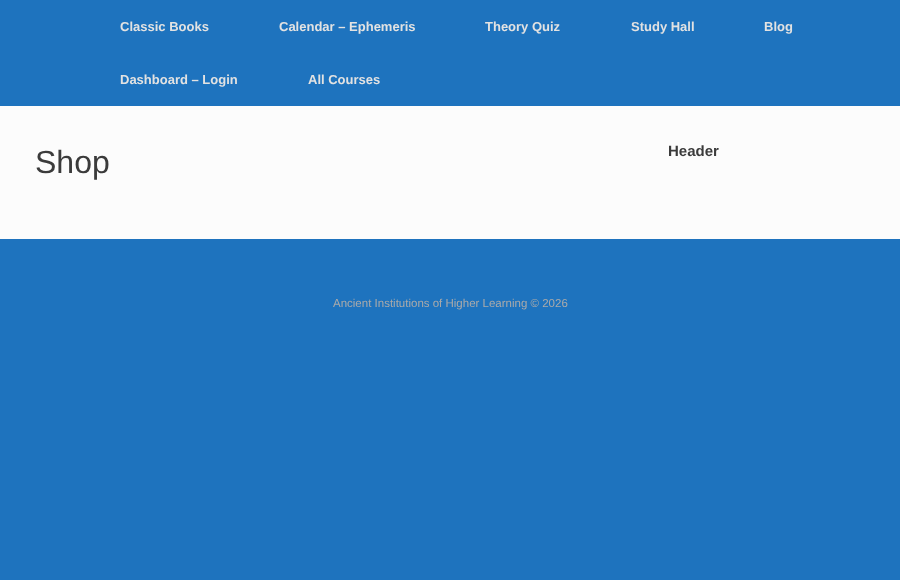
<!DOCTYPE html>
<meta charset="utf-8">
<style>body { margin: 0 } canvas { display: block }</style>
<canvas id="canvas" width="900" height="580"></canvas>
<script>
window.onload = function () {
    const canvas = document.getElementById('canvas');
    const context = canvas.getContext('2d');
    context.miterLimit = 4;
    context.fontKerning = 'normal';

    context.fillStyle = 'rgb(30, 115, 190)';
    context.fillRect(0, 0, 900, 580);
    context.fillStyle = 'rgb(252, 252, 252)';
    context.fillRect(0, 106, 900, 133);
    context.font = 'bold 13px Liberation Sans';
    context.fillStyle = 'rgb(226, 226, 226)';
    context.fillText('Classic Books', 120, 31);
    context.fillText('Calendar – Ephemeris', 279, 31);
    context.fillText('Theory Quiz', 485, 31);
    context.fillText('Study Hall', 631, 31);
    context.fillText('Blog', 764, 31);
    context.fillText('Dashboard – Login', 120, 84);
    context.fillText('All Courses', 308, 84);
    context.font = '32px Liberation Sans';
    context.fillStyle = 'rgb(59, 59, 59)';
    context.fillText('Shop', 35, 173);
    context.font = 'bold 15px Liberation Sans';
    context.fillText('Header', 668, 156);
    context.font = '11.5px Liberation Sans';
    context.fillStyle = 'rgb(170, 170, 170)';
    context.fillText('Ancient Institutions of Higher Learning © 2026', 333, 307);
};
</script>
